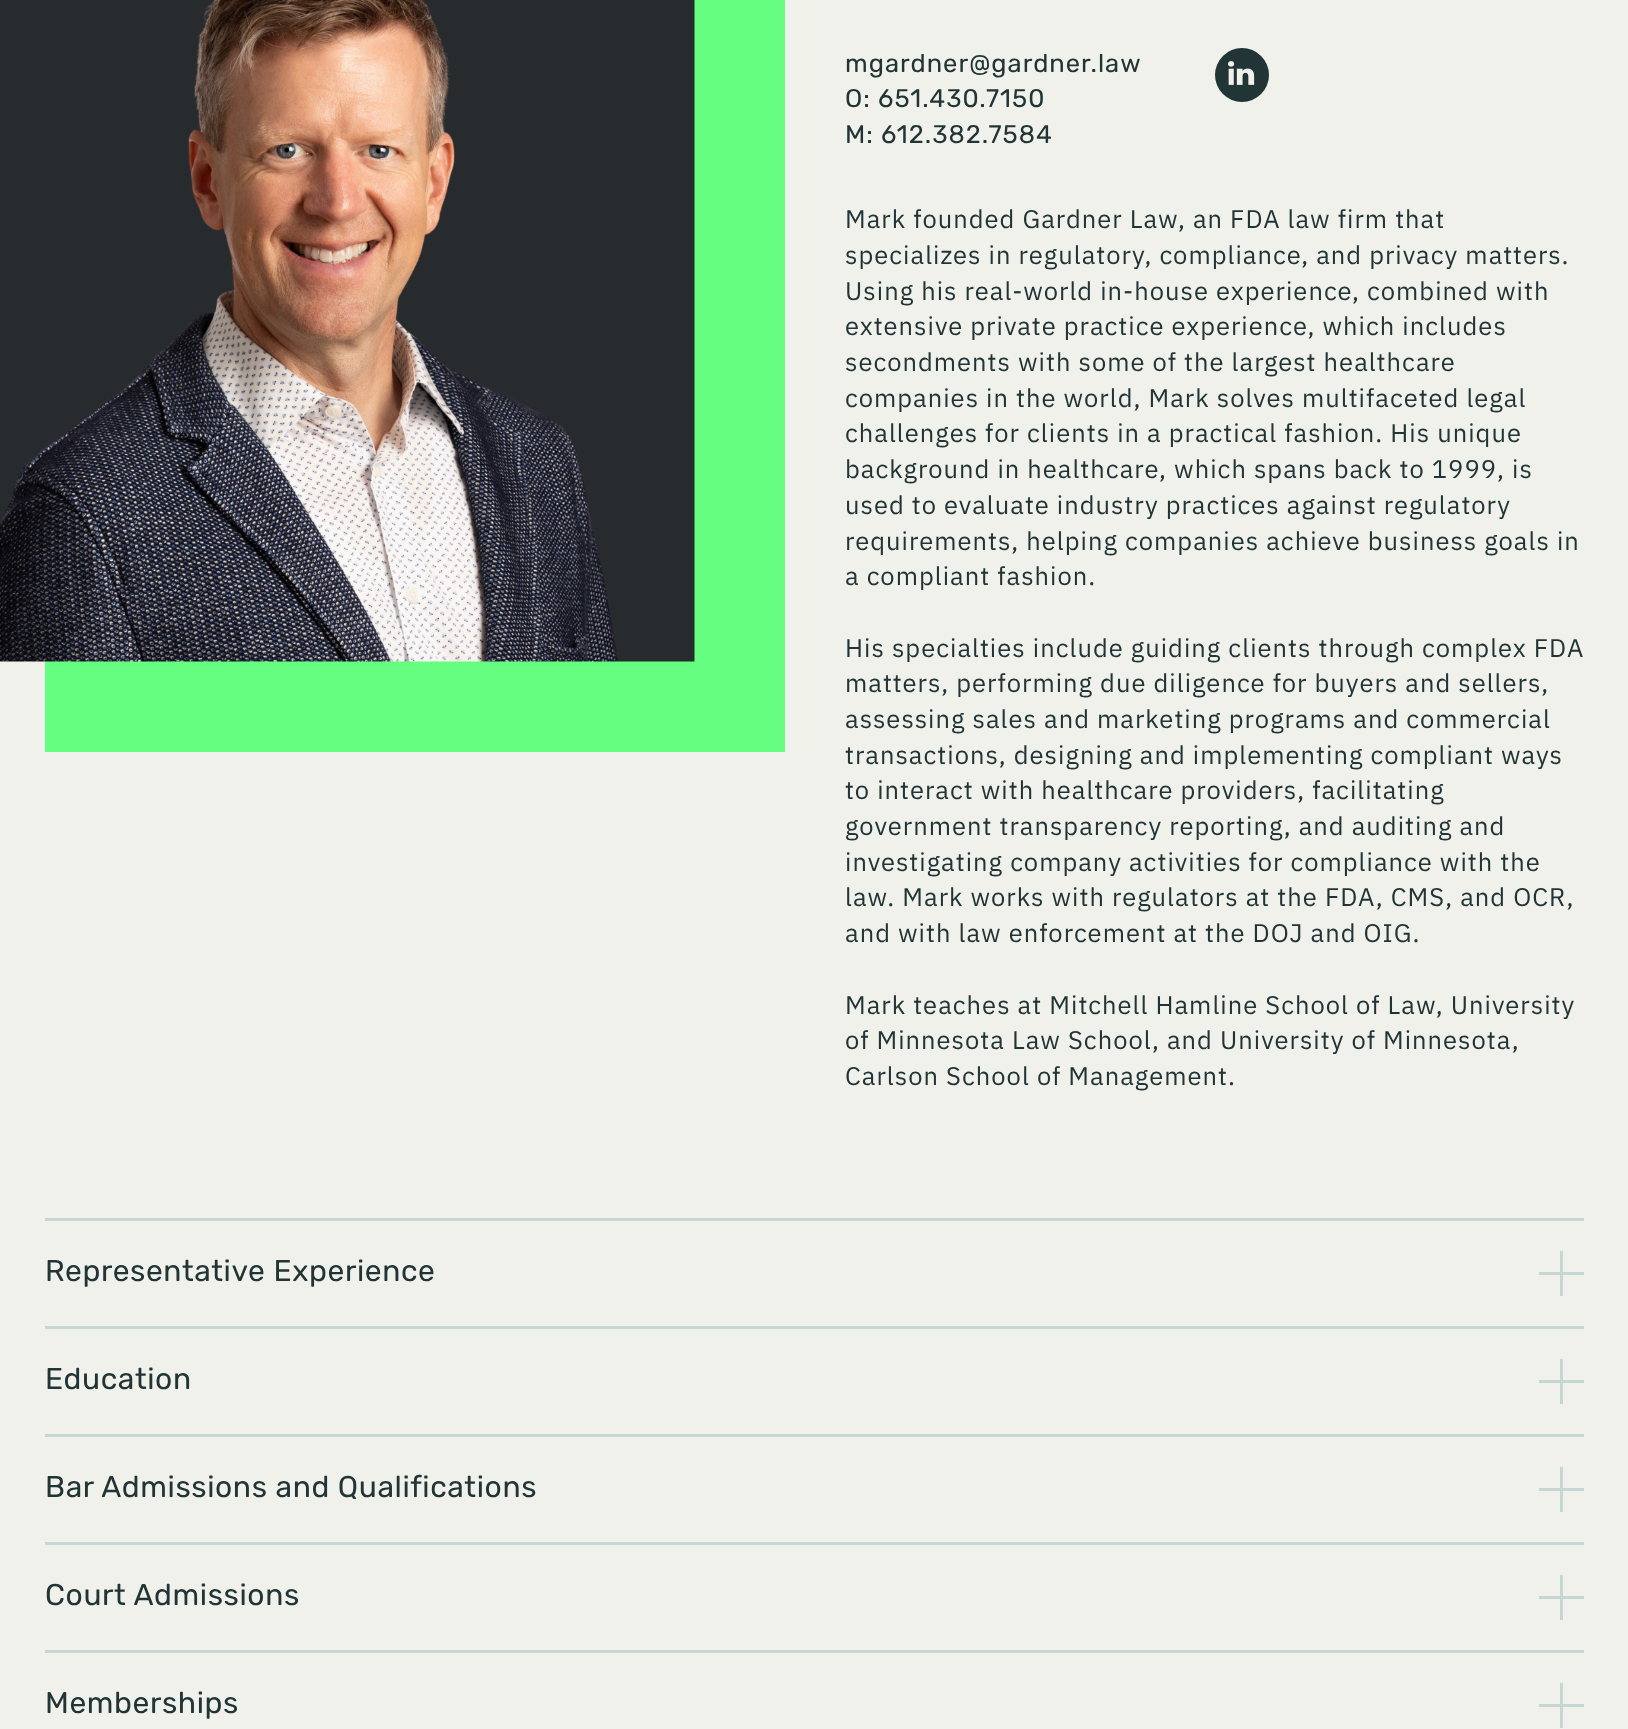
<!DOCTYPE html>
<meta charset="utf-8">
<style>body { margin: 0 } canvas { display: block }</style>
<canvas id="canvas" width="1628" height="1729"></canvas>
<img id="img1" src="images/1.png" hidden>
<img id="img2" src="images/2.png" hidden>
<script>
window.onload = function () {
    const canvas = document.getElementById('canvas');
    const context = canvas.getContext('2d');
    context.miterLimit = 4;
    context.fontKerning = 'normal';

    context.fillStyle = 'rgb(241, 241, 235)';
    context.fillRect(0, 0, 1628, 1729);
    context.fillStyle = 'rgb(101, 254, 128)';
    context.fillRect(45, 0, 740, 752);
    context.drawImage(document.getElementById('img1'), 0, 0, 695, 662);
    context.fillStyle = 'rgb(33, 52, 54)';
    context.beginPath();
    context.arc(1242, 75, 27, 0, 2 * Math.PI);
    context.fill();
    context.drawImage(document.getElementById('img2'), 1228, 61, 27, 24);
    context.fillStyle = 'rgb(196, 215, 213)';
    context.fillRect(45, 1218, 1539, 3);
    context.fillRect(1539, 1272, 45, 3);
    context.fillRect(1560, 1251, 3, 45);
    context.fillRect(45, 1326, 1539, 3);
    context.fillRect(1539, 1380, 45, 3);
    context.fillRect(1560, 1359, 3, 45);
    context.fillRect(45, 1434, 1539, 3);
    context.fillRect(1539, 1488, 45, 3);
    context.fillRect(1560, 1467, 3, 45);
    context.fillRect(45, 1542, 1539, 3);
    context.fillRect(1539, 1596, 45, 3);
    context.fillRect(1560, 1575, 3, 45);
    context.fillRect(45, 1650, 1539, 3);
    context.fillRect(1539, 1704, 45, 3);
    context.fillRect(1560, 1683, 3, 45);
    context.letterSpacing = '1.02px';
    context.font = '25.5px Rubik';
    context.fillStyle = 'rgb(33, 52, 54)';
    context.fillText('mgardner@gardner.law', 845, 72);
    context.fillText('O: 651.430.7150', 845, 107);
    context.fillText('M: 612.382.7584', 845, 143);
    context.font = '25.5px IBM Plex Sans';
    context.fillText('Mark founded Gardner Law, an FDA law firm that', 845, 228);
    context.fillText('specializes in regulatory, compliance, and privacy matters.', 845, 264);
    context.fillText('Using his real-world in-house experience, combined with', 845, 300);
    context.fillText('extensive private practice experience, which includes', 845, 335);
    context.fillText('secondments with some of the largest healthcare', 845, 371);
    context.fillText('companies in the world, Mark solves multifaceted legal', 845, 407);
    context.fillText('challenges for clients in a practical fashion. His unique', 845, 442);
    context.fillText('background in healthcare, which spans back to 1999, is', 845, 478);
    context.fillText('used to evaluate industry practices against regulatory', 845, 514);
    context.fillText('requirements, helping companies achieve business goals in', 845, 550);
    context.fillText('a compliant fashion.', 845, 585);
    context.fillText('His specialties include guiding clients through complex FDA', 845, 657);
    context.fillText('matters, performing due diligence for buyers and sellers,', 845, 692);
    context.fillText('assessing sales and marketing programs and commercial', 845, 728);
    context.fillText('transactions, designing and implementing compliant ways', 845, 764);
    context.fillText('to interact with healthcare providers, facilitating', 845, 799);
    context.fillText('government transparency reporting, and auditing and', 845, 835);
    context.fillText('investigating company activities for compliance with the', 845, 871);
    context.fillText('law. Mark works with regulators at the FDA, CMS, and OCR,', 845, 906);
    context.fillText('and with law enforcement at the DOJ and OIG.', 845, 942);
    context.fillText('Mark teaches at Mitchell Hamline School of Law, University', 845, 1014);
    context.fillText('of Minnesota Law School, and University of Minnesota,', 845, 1049);
    context.fillText('Carlson School of Management.', 845, 1085);
    context.letterSpacing = '0.6px';
    context.font = '30px Rubik';
    context.fillText('Representative Experience', 45, 1281);
    context.fillText('Education', 45, 1389);
    context.fillText('Bar Admissions and Qualifications', 45, 1497);
    context.fillText('Court Admissions', 45, 1605);
    context.fillText('Memberships', 45, 1713);
};
</script>
